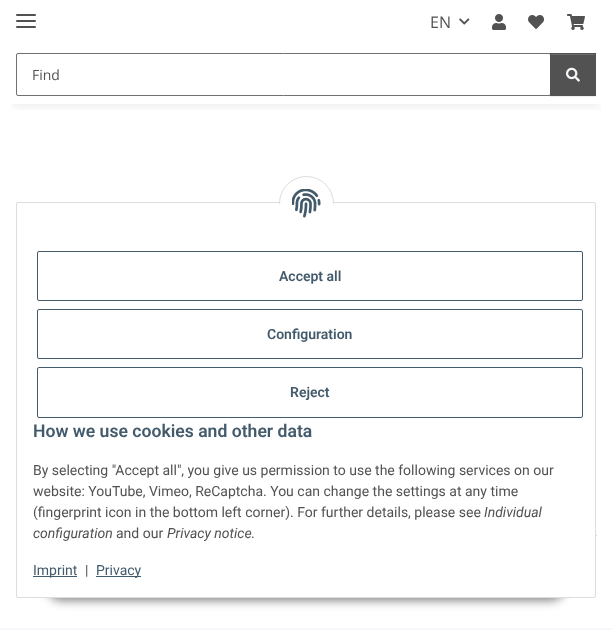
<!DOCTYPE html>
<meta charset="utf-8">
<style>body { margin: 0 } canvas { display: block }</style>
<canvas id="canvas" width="612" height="630"></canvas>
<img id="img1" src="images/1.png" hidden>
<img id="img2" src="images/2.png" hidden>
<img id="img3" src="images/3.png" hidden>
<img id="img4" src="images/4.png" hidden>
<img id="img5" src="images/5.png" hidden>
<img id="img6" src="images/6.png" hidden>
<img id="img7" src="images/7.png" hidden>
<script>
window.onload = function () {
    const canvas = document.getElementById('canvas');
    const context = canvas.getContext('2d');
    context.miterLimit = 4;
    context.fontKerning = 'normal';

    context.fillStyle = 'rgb(245, 247, 250)';
    context.fillRect(0, 0, 612, 630);
    context.fillStyle = 'rgb(255, 255, 255)';
    context.fillRect(0, 0, 612, 628);
    context.drawImage(document.getElementById('img1'), 596, 535, 1, 1);
    context.save();
    context.beginPath();
    context.rect(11, 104, 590, 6);
    context.clip();
    context.fillStyle = 'rgba(0, 0, 0, 0.06)';
    context.filter = 'blur(4.5px)';
    context.beginPath();
    context.rect(12, 28, 588, 80);
    context.fill();
    context.filter = 'none';
    context.restore();
    context.fillStyle = 'rgb(82, 82, 82)';
    context.beginPath();
    context.roundRect(16, 20, 20, 2, 1);
    context.fill();
    context.beginPath();
    context.roundRect(16, 14, 20, 2, 1);
    context.fill();
    context.beginPath();
    context.roundRect(16, 26, 20, 2, 1);
    context.fill();
    context.drawImage(document.getElementById('img2'), 459, 18, 11, 7);
    context.drawImage(document.getElementById('img3'), 492, 14, 14, 16);
    context.drawImage(document.getElementById('img4'), 528, 15, 16, 14);
    context.drawImage(document.getElementById('img5'), 567, 14, 18, 16);
    context.beginPath();
    context.roundRect(16.5, 53.5, 534, 42, 1.5);
    context.strokeStyle = 'rgb(112, 112, 112)';
    context.stroke();
    context.fillStyle = 'rgba(0, 0, 0, 0.07)';
    context.filter = 'blur(0.5px)';
    context.beginPath();
    context.rect(550, 54, 46, 43);
    context.fill();
    context.filter = 'none';
    context.fillStyle = 'rgb(82, 82, 82)';
    context.fillRect(550, 53, 46, 43);
    context.fillStyle = 'rgb(108, 108, 108)';
    context.fillRect(551, 54, 44, 1);
    context.drawImage(document.getElementById('img6'), 566, 67, 14, 15);
    context.fillStyle = 'rgba(0, 0, 0, 0.45)';
    context.filter = 'blur(5px)';
    context.beginPath();
    context.roundRect(46, 569, 520, 32, 16);
    context.fill();
    context.filter = 'none';
    context.fillStyle = 'rgb(255, 255, 255)';
    context.beginPath();
    context.roundRect(16.5, 202.5, 579, 395, 1.5);
    context.fill();
    context.strokeStyle = 'rgb(221, 221, 221)';
    context.stroke();
    context.beginPath();
    context.arc(306.5, 203.5, 27, 0, 2 * Math.PI);
    context.fill();
    context.stroke();
    context.fillRect(279, 204, 55, 27);
    context.drawImage(document.getElementById('img7'), 292, 189, 29, 29);
    context.beginPath();
    context.roundRect(37.5, 251.5, 545, 49, 1.5);
    context.strokeStyle = 'rgb(67, 90, 107)';
    context.stroke();
    context.beginPath();
    context.roundRect(37.5, 309.5, 545, 49, 1.5);
    context.stroke();
    context.beginPath();
    context.roundRect(37.5, 367.5, 545, 50, 1.5);
    context.stroke();
    context.fillStyle = 'rgb(67, 90, 107)';
    context.fillRect(33, 576, 44, 1);
    context.fillRect(96, 576, 45, 1);
    context.font = '16px Open Sans';
    context.fillStyle = 'rgb(82, 82, 82)';
    context.fillText('EN', 430, 28);
    context.font = '14px Open Sans';
    context.fillText('Find', 32, 80);
    context.font = '600 14px Roboto';
    context.fillStyle = 'rgb(67, 90, 107)';
    context.fillText('Accept all', 279, 281);
    context.fillText('Configuration', 267, 339);
    context.fillText('Reject', 290, 397);
    context.font = '600 17.6px Roboto';
    context.fillText('How we use cookies and other data', 33, 437);
    context.font = '14px Roboto';
    context.fillStyle = 'rgb(82, 82, 82)';
    context.fillText('By selecting "Accept all", you give us permission to use the following services on our', 33, 475);
    context.fillText('website: YouTube, Vimeo, ReCaptcha. You can change the settings at any time', 33, 496);
    context.fillText('(fingerprint icon in the bottom left corner). For further details, please see', 33, 517);
    context.font = 'italic 14px Roboto';
    context.fillText('Individual', 484, 517);
    context.fillText('configuration', 33, 538);
    context.font = '14px Roboto';
    context.fillText('and our', 116, 538);
    context.font = 'italic 14px Roboto';
    context.fillText('Privacy notice', 167, 538);
    context.font = '14px Roboto';
    context.fillText('.', 251, 538);
    context.fillStyle = 'rgb(67, 90, 107)';
    context.fillText('Imprint', 33, 575);
    context.fillStyle = 'rgb(82, 82, 82)';
    context.fillText('|', 85, 575);
    context.fillStyle = 'rgb(67, 90, 107)';
    context.fillText('Privacy', 96, 575);
};
</script>
